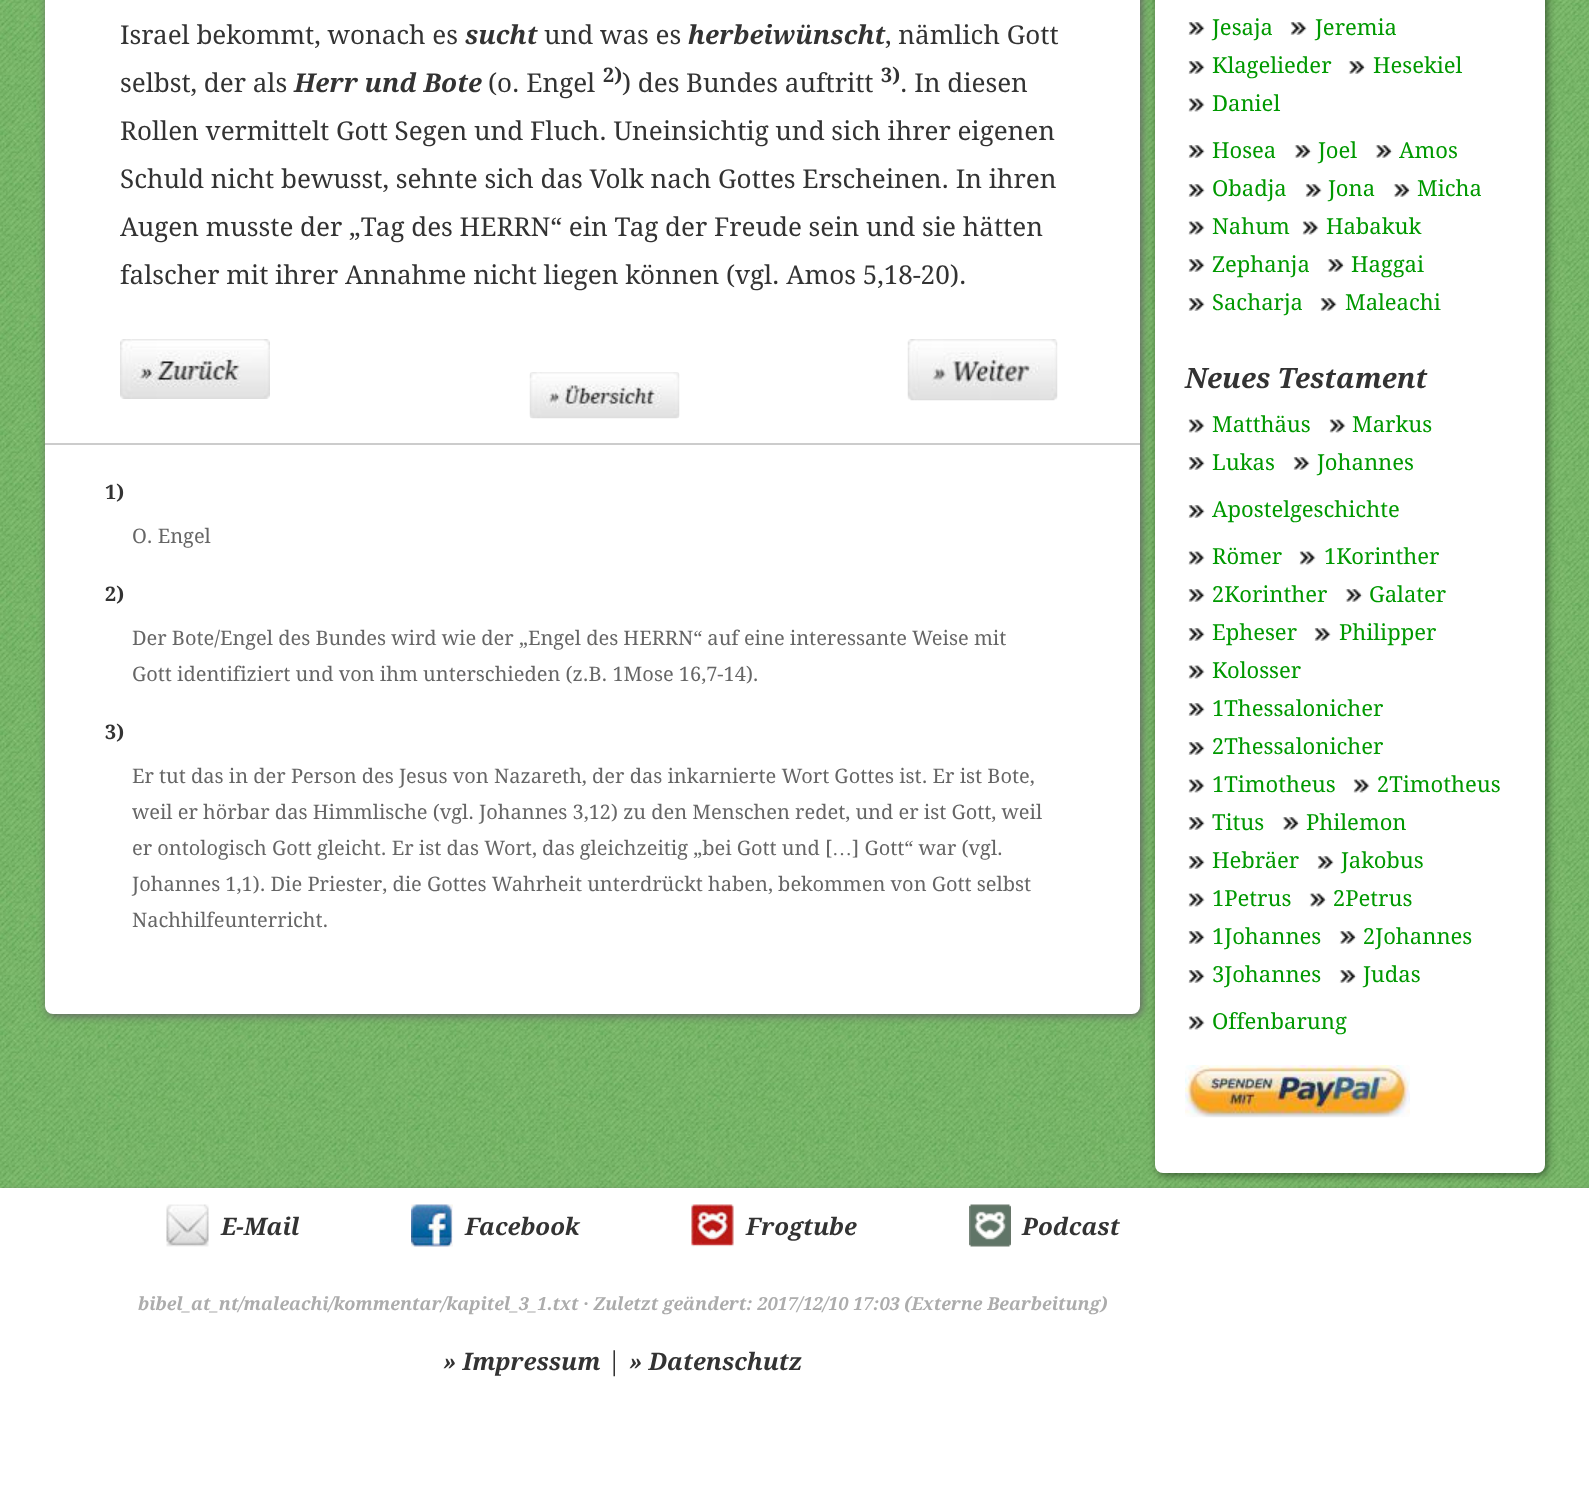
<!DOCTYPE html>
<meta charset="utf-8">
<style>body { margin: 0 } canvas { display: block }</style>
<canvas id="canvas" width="1589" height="1506"></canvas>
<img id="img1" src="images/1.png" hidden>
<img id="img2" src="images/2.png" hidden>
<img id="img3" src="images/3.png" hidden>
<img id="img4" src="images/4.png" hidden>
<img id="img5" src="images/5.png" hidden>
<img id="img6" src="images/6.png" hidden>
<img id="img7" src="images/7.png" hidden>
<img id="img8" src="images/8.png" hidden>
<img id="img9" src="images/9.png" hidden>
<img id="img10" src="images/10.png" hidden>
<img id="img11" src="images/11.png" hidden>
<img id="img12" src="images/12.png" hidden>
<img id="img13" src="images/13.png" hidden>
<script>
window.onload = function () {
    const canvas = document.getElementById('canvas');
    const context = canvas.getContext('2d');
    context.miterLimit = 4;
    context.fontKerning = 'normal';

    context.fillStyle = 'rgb(255, 255, 255)';
    context.fillRect(0, 0, 1589, 1506);
    context.drawImage(document.getElementById('img1'), 0, 0, 1589, 1188);
    context.fillStyle = 'rgb(102, 102, 102)';
    context.filter = 'blur(4px)';
    context.beginPath();
    context.roundRect(47, -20, 1095, 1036, 8);
    context.fill();
    context.filter = 'none';
    context.fillStyle = 'rgb(255, 255, 255)';
    context.beginPath();
    context.roundRect(45, -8, 1095, 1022, 8);
    context.fill();
    context.drawImage(document.getElementById('img2'), 120, 339, 150, 60);
    context.drawImage(document.getElementById('img3'), 529, 372, 151, 47);
    context.drawImage(document.getElementById('img4'), 907, 339, 151, 62);
    context.fillStyle = 'rgb(204, 204, 204)';
    context.fillRect(45, 443, 1095, 2);
    context.fillStyle = 'rgba(0, 0, 0, 0.5)';
    context.filter = 'blur(4px)';
    context.beginPath();
    context.roundRect(1157, -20, 390, 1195, 8);
    context.fill();
    context.filter = 'none';
    context.fillStyle = 'rgb(255, 255, 255)';
    context.beginPath();
    context.roundRect(1155, -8, 390, 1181, 8);
    context.fill();
    context.drawImage(document.getElementById('img5'), 1188, 22, 17, 13);
    context.drawImage(document.getElementById('img5'), 1290, 22, 17, 13);
    context.drawImage(document.getElementById('img5'), 1188, 61, 17, 13);
    context.drawImage(document.getElementById('img6'), 1348, 61, 18, 13);
    context.drawImage(document.getElementById('img7'), 1188, 98, 17, 14);
    context.drawImage(document.getElementById('img5'), 1188, 145, 17, 13);
    context.drawImage(document.getElementById('img6'), 1294, 145, 18, 13);
    context.drawImage(document.getElementById('img6'), 1375, 145, 18, 13);
    context.drawImage(document.getElementById('img5'), 1188, 184, 17, 13);
    context.drawImage(document.getElementById('img5'), 1305, 184, 17, 13);
    context.drawImage(document.getElementById('img6'), 1393, 184, 18, 13);
    context.drawImage(document.getElementById('img7'), 1188, 221, 17, 14);
    context.drawImage(document.getElementById('img7'), 1302, 221, 17, 14);
    context.drawImage(document.getElementById('img5'), 1188, 259, 17, 13);
    context.drawImage(document.getElementById('img6'), 1327, 259, 18, 13);
    context.drawImage(document.getElementById('img5'), 1188, 298, 17, 13);
    context.drawImage(document.getElementById('img5'), 1320, 298, 17, 13);
    context.drawImage(document.getElementById('img7'), 1188, 419, 17, 14);
    context.drawImage(document.getElementById('img7'), 1329, 419, 17, 14);
    context.drawImage(document.getElementById('img5'), 1188, 457, 17, 13);
    context.drawImage(document.getElementById('img5'), 1293, 457, 17, 13);
    context.drawImage(document.getElementById('img5'), 1188, 505, 17, 13);
    context.drawImage(document.getElementById('img7'), 1188, 551, 17, 14);
    context.drawImage(document.getElementById('img7'), 1299, 551, 17, 14);
    context.drawImage(document.getElementById('img5'), 1188, 589, 17, 13);
    context.drawImage(document.getElementById('img6'), 1345, 589, 18, 13);
    context.drawImage(document.getElementById('img5'), 1188, 628, 17, 13);
    context.drawImage(document.getElementById('img5'), 1314, 628, 17, 13);
    context.drawImage(document.getElementById('img7'), 1188, 665, 17, 14);
    context.drawImage(document.getElementById('img5'), 1188, 703, 17, 13);
    context.drawImage(document.getElementById('img5'), 1188, 742, 17, 13);
    context.drawImage(document.getElementById('img7'), 1188, 779, 17, 14);
    context.drawImage(document.getElementById('img7'), 1353, 779, 17, 14);
    context.drawImage(document.getElementById('img5'), 1188, 817, 17, 13);
    context.drawImage(document.getElementById('img6'), 1282, 817, 18, 13);
    context.drawImage(document.getElementById('img5'), 1188, 856, 17, 13);
    context.drawImage(document.getElementById('img5'), 1317, 856, 17, 13);
    context.drawImage(document.getElementById('img7'), 1188, 893, 17, 14);
    context.drawImage(document.getElementById('img8'), 1309, 893, 18, 14);
    context.drawImage(document.getElementById('img5'), 1188, 931, 17, 13);
    context.drawImage(document.getElementById('img6'), 1339, 931, 18, 13);
    context.drawImage(document.getElementById('img5'), 1188, 970, 17, 13);
    context.drawImage(document.getElementById('img6'), 1339, 970, 18, 13);
    context.drawImage(document.getElementById('img7'), 1188, 1016, 17, 14);
    context.drawImage(document.getElementById('img9'), 1185, 1065, 225, 53);
    context.fillStyle = 'rgb(102, 102, 102)';
    context.filter = 'blur(2px)';
    context.beginPath();
    context.rect(2, 1190, 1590, 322);
    context.fill();
    context.filter = 'none';
    context.fillStyle = 'rgb(255, 255, 255)';
    context.fillRect(0, 1188, 1589, 318);
    context.drawImage(document.getElementById('img10'), 166, 1204, 43, 43);
    context.drawImage(document.getElementById('img11'), 411, 1204, 42, 43);
    context.drawImage(document.getElementById('img12'), 691, 1204, 43, 43);
    context.drawImage(document.getElementById('img13'), 969, 1204, 42, 43);
    context.font = '26px Droid Serif';
    context.fillStyle = 'rgb(51, 51, 51)';
    context.fillText('Israel bekommt, wonach es', 120, 44);
    context.font = 'italic bold 26px Droid Serif';
    context.fillText('sucht', 465, 44);
    context.font = '26px Droid Serif';
    context.fillText('und was es', 544, 44);
    context.font = 'italic bold 26px Droid Serif';
    context.fillText('herbeiwünscht', 688, 44);
    context.font = '26px Droid Serif';
    context.fillText(', nämlich Gott', 885, 44);
    context.fillText('selbst, der als', 120, 92);
    context.font = 'italic bold 26px Droid Serif';
    context.fillText('Herr und Bote', 294, 92);
    context.font = '26px Droid Serif';
    context.fillText('(o. Engel', 488, 92);
    context.font = 'bold 20px Droid Serif';
    context.fillText('2)', 603, 82);
    context.font = '26px Droid Serif';
    context.fillText(') des Bundes auftritt', 622, 92);
    context.font = 'bold 20px Droid Serif';
    context.fillText('3)', 881, 82);
    context.font = '26px Droid Serif';
    context.fillText('. In diesen', 900, 92);
    context.fillText('Rollen vermittelt Gott Segen und Fluch. Uneinsichtig und sich ihrer eigenen', 120, 140);
    context.fillText('Schuld nicht bewusst, sehnte sich das Volk nach Gottes Erscheinen. In ihren', 120, 188);
    context.fillText('Augen musste der „Tag des HERRN“ ein Tag der Freude sein und sie hätten', 120, 236);
    context.fillText('falscher mit ihrer Annahme nicht liegen können (vgl. Amos 5,18-20).', 120, 284);
    context.font = 'bold 20px Droid Serif';
    context.fillText('1)', 105, 499);
    context.font = '20px Droid Serif';
    context.fillStyle = 'rgb(102, 102, 102)';
    context.fillText('O. Engel', 132, 543);
    context.font = 'bold 20px Droid Serif';
    context.fillStyle = 'rgb(51, 51, 51)';
    context.fillText('2)', 105, 601);
    context.font = '20px Droid Serif';
    context.fillStyle = 'rgb(102, 102, 102)';
    context.fillText('Der Bote/Engel des Bundes wird wie der „Engel des HERRN“ auf eine interessante Weise mit', 132, 645);
    context.fillText('Gott identifiziert und von ihm unterschieden (z.B. 1Mose 16,7-14).', 132, 681);
    context.font = 'bold 20px Droid Serif';
    context.fillStyle = 'rgb(51, 51, 51)';
    context.fillText('3)', 105, 739);
    context.font = '20px Droid Serif';
    context.fillStyle = 'rgb(102, 102, 102)';
    context.fillText('Er tut das in der Person des Jesus von Nazareth, der das inkarnierte Wort Gottes ist. Er ist Bote,', 132, 783);
    context.fillText('weil er hörbar das Himmlische (vgl. Johannes 3,12) zu den Menschen redet, und er ist Gott, weil', 132, 819);
    context.fillText('er ontologisch Gott gleicht. Er ist das Wort, das gleichzeitig „bei Gott und [', 132, 855);
    context.font = '20px Liberation Serif';
    context.fillText('…', 832, 855);
    context.font = '20px Droid Serif';
    context.fillText('] Gott“ war (vgl.', 852, 855);
    context.fillText('Johannes 1,1). Die Priester, die Gottes Wahrheit unterdrückt haben, bekommen von Gott selbst', 132, 891);
    context.fillText('Nachhilfeunterricht.', 132, 927);
    context.font = '22px Droid Serif';
    context.fillStyle = 'rgb(0, 153, 0)';
    context.fillText('Jesaja', 1212, 35);
    context.fillText('Jeremia', 1315, 35);
    context.fillText('Klagelieder', 1212, 73);
    context.fillText('Hesekiel', 1373, 73);
    context.fillText('Daniel', 1212, 111);
    context.fillText('Hosea', 1212, 158);
    context.fillText('Joel', 1318, 158);
    context.fillText('Amos', 1399, 158);
    context.fillText('Obadja', 1212, 196);
    context.fillText('Jona', 1328, 196);
    context.fillText('Micha', 1417, 196);
    context.fillText('Nahum', 1212, 234);
    context.fillText('Habakuk', 1326, 234);
    context.fillText('Zephanja', 1212, 272);
    context.fillText('Haggai', 1351, 272);
    context.fillText('Sacharja', 1212, 310);
    context.fillText('Maleachi', 1345, 310);
    context.font = 'italic bold 28px Droid Serif';
    context.fillStyle = 'rgb(51, 51, 51)';
    context.fillText('Neues Testament', 1185, 388);
    context.font = '22px Droid Serif';
    context.fillStyle = 'rgb(0, 153, 0)';
    context.fillText('Matthäus', 1212, 432);
    context.fillText('Markus', 1352, 432);
    context.fillText('Lukas', 1212, 470);
    context.fillText('Johannes', 1317, 470);
    context.fillText('Apostelgeschichte', 1212, 517);
    context.fillText('Römer', 1212, 564);
    context.fillText('1Korinther', 1324, 564);
    context.fillText('2Korinther', 1212, 602);
    context.fillText('Galater', 1369, 602);
    context.fillText('Epheser', 1212, 640);
    context.fillText('Philipper', 1339, 640);
    context.fillText('Kolosser', 1212, 678);
    context.fillText('1Thessalonicher', 1212, 716);
    context.fillText('2Thessalonicher', 1212, 754);
    context.fillText('1Timotheus', 1212, 792);
    context.fillText('2Timotheus', 1377, 792);
    context.fillText('Titus', 1212, 830);
    context.fillText('Philemon', 1306, 830);
    context.fillText('Hebräer', 1212, 868);
    context.fillText('Jakobus', 1341, 868);
    context.fillText('1Petrus', 1212, 906);
    context.fillText('2Petrus', 1333, 906);
    context.fillText('1Johannes', 1212, 944);
    context.fillText('2Johannes', 1363, 944);
    context.fillText('3Johannes', 1212, 982);
    context.fillText('Judas', 1363, 982);
    context.fillText('Offenbarung', 1212, 1029);
    context.font = 'italic bold 24px Droid Serif';
    context.fillStyle = 'rgb(51, 51, 51)';
    context.fillText('E-Mail', 221, 1235);
    context.fillText('Facebook', 465, 1235);
    context.fillText('Frogtube', 746, 1235);
    context.fillText('Podcast', 1022, 1235);
    context.font = 'italic bold 18px Droid Serif';
    context.fillStyle = 'rgb(172, 172, 172)';
    context.fillText('bibel_at_nt/maleachi/kommentar/kapitel_3_1.txt · Zuletzt geändert: 2017/12/10 17:03 (Externe Bearbeitung)', 138, 1310);
    context.font = 'italic bold 24px Droid Serif';
    context.fillStyle = 'rgb(51, 51, 51)';
    context.fillText('» Impressum', 443, 1370);
    context.font = '26px Droid Serif';
    context.fillText('|', 607, 1370);
    context.font = 'italic bold 24px Droid Serif';
    context.fillText('» Datenschutz', 629, 1370);
};
</script>
